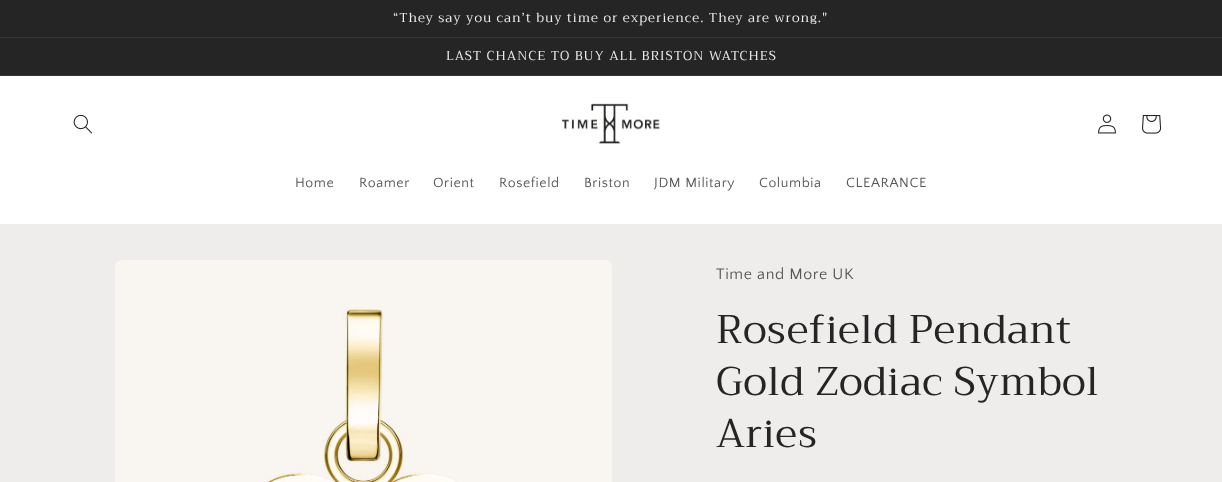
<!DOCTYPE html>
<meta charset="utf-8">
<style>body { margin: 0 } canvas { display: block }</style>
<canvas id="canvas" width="1222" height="482"></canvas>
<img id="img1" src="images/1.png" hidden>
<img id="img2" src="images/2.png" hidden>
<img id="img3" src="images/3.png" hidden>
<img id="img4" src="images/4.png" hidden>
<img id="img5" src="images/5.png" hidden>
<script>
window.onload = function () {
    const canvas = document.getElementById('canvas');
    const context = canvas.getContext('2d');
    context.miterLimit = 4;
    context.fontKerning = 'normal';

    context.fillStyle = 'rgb(239, 236, 236)';
    context.fillRect(0, 0, 1222, 482);
    context.fillStyle = 'rgb(37, 37, 37)';
    context.fillRect(0, 0, 1222, 37);
    context.fillStyle = 'rgb(53, 53, 53)';
    context.fillRect(0, 37, 1222, 1);
    context.fillStyle = 'rgb(37, 37, 37)';
    context.fillRect(0, 38, 1222, 37);
    context.fillStyle = 'rgb(53, 53, 53)';
    context.fillRect(0, 75, 1222, 1);
    context.fillStyle = 'rgb(255, 255, 255)';
    context.fillRect(0, 76, 1222, 148);
    context.drawImage(document.getElementById('img1'), 73, 114, 19, 20);
    context.drawImage(document.getElementById('img2'), 561, 103, 99, 41);
    context.drawImage(document.getElementById('img3'), 1098, 114, 18, 20);
    context.drawImage(document.getElementById('img4'), 1142, 115, 20, 19);
    context.drawImage(document.getElementById('img5'), 115, 260, 497, 222);
    context.letterSpacing = '1px';
    context.font = '13px Trirong';
    context.fillStyle = 'rgb(239, 236, 236)';
    context.fillText('“They say you can’t buy time or experience. They are wrong."', 393, 22);
    context.fillText('LAST CHANCE TO BUY ALL BRISTON WATCHES', 446, 60);
    context.letterSpacing = '0.6px';
    context.font = '14px Quattrocento Sans';
    context.fillStyle = 'rgb(88, 87, 87)';
    context.fillText('Home', 295, 187);
    context.fillText('Roamer', 359, 187);
    context.fillText('Orient', 433, 187);
    context.fillText('Rosefield', 499, 187);
    context.fillText('Briston', 584, 187);
    context.fillText('JDM Military', 654, 187);
    context.fillText('Columbia', 759, 187);
    context.fillText('CLEARANCE', 846, 187);
    context.font = '16px Quattrocento Sans';
    context.fillText('Time and More UK', 716, 279);
    context.font = '40px Trirong';
    context.fillStyle = 'rgb(37, 37, 37)';
    context.fillText('Rosefield Pendant', 716, 343);
    context.fillText('Gold Zodiac Symbol', 716, 395);
    context.fillText('Aries', 716, 447);
};
</script>
